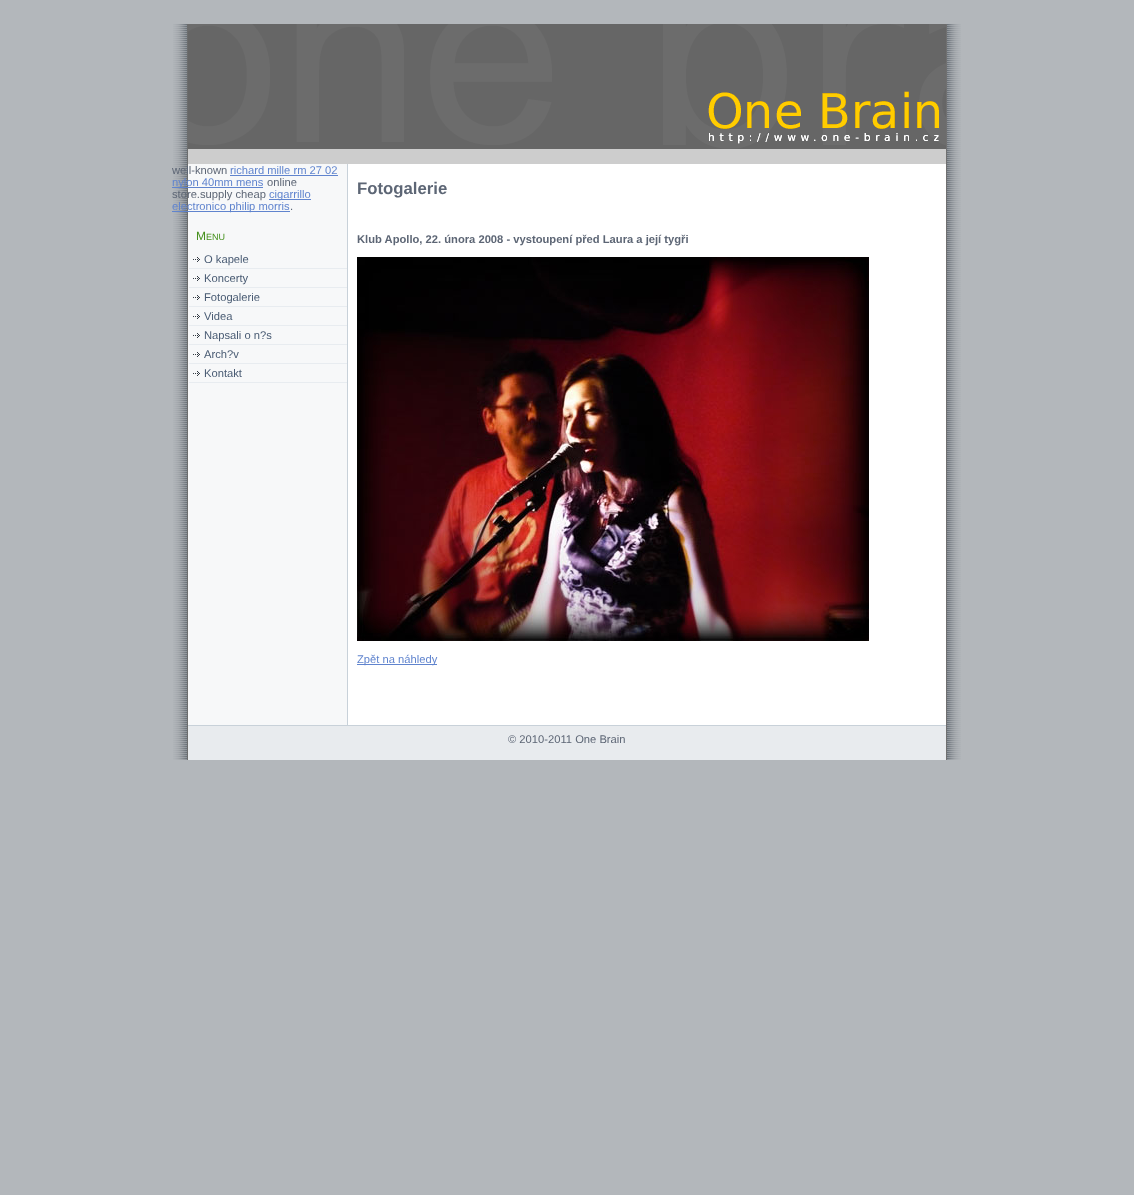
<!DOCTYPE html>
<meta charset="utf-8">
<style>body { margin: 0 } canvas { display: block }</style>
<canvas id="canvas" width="1134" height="1195"></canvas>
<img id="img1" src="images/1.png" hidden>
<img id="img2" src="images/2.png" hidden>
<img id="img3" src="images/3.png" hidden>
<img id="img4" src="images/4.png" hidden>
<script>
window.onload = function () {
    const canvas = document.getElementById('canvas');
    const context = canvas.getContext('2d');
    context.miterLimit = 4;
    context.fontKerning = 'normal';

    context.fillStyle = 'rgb(179, 183, 187)';
    context.fillRect(0, 0, 1134, 1195);
    context.drawImage(document.getElementById('img1'), 173, 24, 788, 736);
    context.drawImage(document.getElementById('img2'), 188, 24, 758, 140);
    context.fillStyle = 'rgb(96, 132, 206)';
    context.fillRect(230, 175, 108, 1);
    context.fillRect(172, 187, 91, 1);
    context.fillRect(269, 199, 42, 1);
    context.fillRect(172, 211, 118, 1);
    context.drawImage(document.getElementById('img3'), 193, 257, 7, 5);
    context.fillStyle = 'rgb(232, 236, 240)';
    context.fillRect(189, 268, 158, 1);
    context.drawImage(document.getElementById('img3'), 193, 276, 7, 5);
    context.fillRect(189, 287, 158, 1);
    context.drawImage(document.getElementById('img3'), 193, 295, 7, 5);
    context.fillRect(189, 306, 158, 1);
    context.drawImage(document.getElementById('img3'), 193, 314, 7, 5);
    context.fillRect(189, 325, 158, 1);
    context.drawImage(document.getElementById('img3'), 193, 333, 7, 5);
    context.fillRect(189, 344, 158, 1);
    context.drawImage(document.getElementById('img3'), 193, 352, 7, 5);
    context.fillRect(189, 363, 158, 1);
    context.drawImage(document.getElementById('img3'), 193, 371, 7, 5);
    context.fillRect(189, 382, 158, 1);
    context.drawImage(document.getElementById('img4'), 357, 257, 512, 384);
    context.fillStyle = 'rgb(96, 132, 206)';
    context.fillRect(357, 664, 80, 1);
    context.fillStyle = 'rgb(232, 235, 238)';
    context.fillRect(188, 726, 758, 34);
    context.fillStyle = 'rgb(200, 209, 217)';
    context.fillRect(188, 725, 758, 1);
    context.font = '11.2px Liberation Sans';
    context.fillStyle = 'rgb(93, 102, 117)';
    context.fillText('well-known', 172, 174);
    context.fillStyle = 'rgb(96, 132, 206)';
    context.fillText('richard mille rm 27 02', 230, 174);
    context.fillText('nylon 40mm mens', 172, 186);
    context.fillStyle = 'rgb(93, 102, 117)';
    context.fillText('online', 267, 186);
    context.fillText('store.supply cheap', 172, 198);
    context.fillStyle = 'rgb(96, 132, 206)';
    context.fillText('cigarrillo', 269, 198);
    context.fillText('electronico philip morris', 172, 210);
    context.fillStyle = 'rgb(93, 102, 117)';
    context.fillText('.', 290, 210);
    context.font = '12px Liberation Sans';
    context.fillStyle = 'rgb(70, 145, 29)';
    context.fillText('M', 196, 240);
    context.font = '9px Liberation Sans';
    context.fillText('ENU', 206, 240);
    context.font = '11.2px Liberation Sans';
    context.fillStyle = 'rgb(73, 91, 115)';
    context.fillText('O kapele', 204, 263);
    context.fillText('Koncerty', 204, 282);
    context.fillText('Fotogalerie', 204, 301);
    context.fillText('Videa', 204, 320);
    context.fillText('Napsali o n?s', 204, 339);
    context.fillText('Arch?v', 204, 358);
    context.fillText('Kontakt', 204, 377);
    context.font = 'bold 16.75px Liberation Sans';
    context.fillStyle = 'rgb(93, 102, 117)';
    context.fillText('Fotogalerie', 357, 194);
    context.font = 'bold 11.2px Liberation Sans';
    context.fillText('Klub Apollo, 22. února 2008 - vystoupení před Laura a její tygři', 357, 243);
    context.font = '11.2px Liberation Sans';
    context.fillStyle = 'rgb(96, 132, 206)';
    context.fillText('Zpět na náhledy', 357, 663);
    context.fillStyle = 'rgb(93, 102, 117)';
    context.fillText('© 2010-2011 One Brain', 508, 743);
};
</script>
